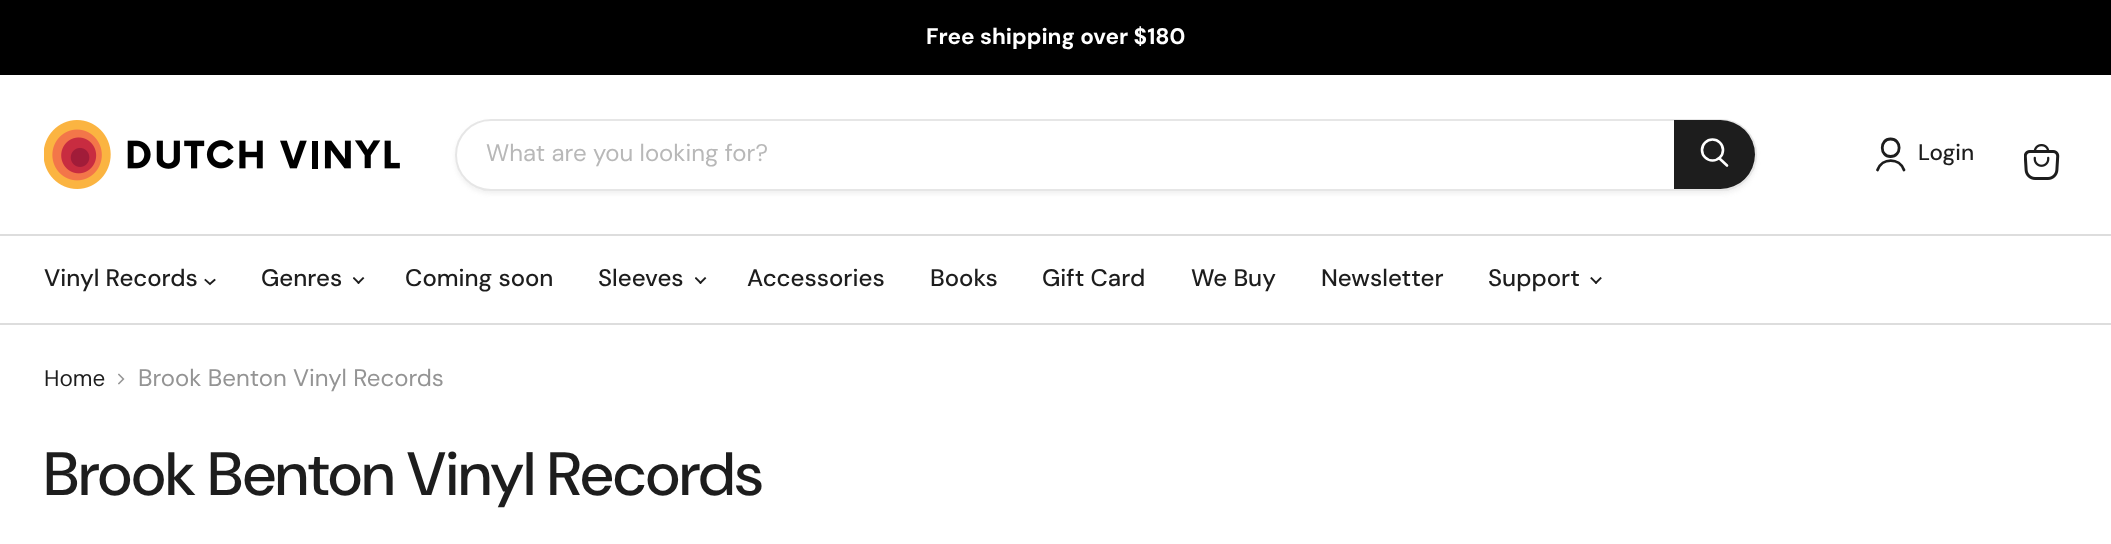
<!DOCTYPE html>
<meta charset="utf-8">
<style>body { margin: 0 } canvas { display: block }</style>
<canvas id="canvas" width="2111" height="544"></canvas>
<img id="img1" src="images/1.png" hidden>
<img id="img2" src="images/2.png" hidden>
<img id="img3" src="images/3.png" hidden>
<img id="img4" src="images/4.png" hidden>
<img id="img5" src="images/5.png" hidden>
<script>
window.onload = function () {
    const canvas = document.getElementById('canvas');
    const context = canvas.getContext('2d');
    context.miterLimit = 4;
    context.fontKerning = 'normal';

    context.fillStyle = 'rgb(255, 255, 255)';
    context.fillRect(0, 0, 2111, 544);
    context.fillStyle = 'rgb(0, 0, 0)';
    context.fillRect(0, 0, 2111, 75);
    context.drawImage(document.getElementById('img1'), 44, 120, 356, 69);
    context.save();
    context.beginPath();
    context.moveTo(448, 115);
    context.lineTo(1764, 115);
    context.lineTo(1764, 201);
    context.lineTo(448, 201);
    context.closePath();
    context.moveTo(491, 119);
    context.lineTo(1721, 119);
    context.bezierCurveTo(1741, 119, 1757, 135, 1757, 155);
    context.bezierCurveTo(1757, 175, 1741, 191, 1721, 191);
    context.lineTo(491, 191);
    context.bezierCurveTo(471, 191, 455, 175, 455, 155);
    context.bezierCurveTo(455, 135, 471, 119, 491, 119);
    context.closePath();
    context.clip('evenodd');
    context.fillStyle = 'rgba(128, 128, 128, 0.11)';
    context.filter = 'blur(2px)';
    context.beginPath();
    context.roundRect(455, 122, 1302, 72, 36);
    context.fill();
    context.filter = 'none';
    context.restore();
    context.beginPath();
    context.roundRect(456, 120, 1300, 70, 35);
    context.strokeStyle = 'rgba(128, 128, 128, 0.2)';
    context.lineWidth = 2;
    context.stroke();
    context.fillStyle = 'rgb(29, 29, 29)';
    context.beginPath();
    context.roundRect(1674, 120, 81, 69, [0, 34.5, 34.5, 0]);
    context.fill();
    context.beginPath();
    context.moveTo(1727, 165.5);
    context.lineTo(1719.5, 158.5);
    context.strokeStyle = 'rgb(255, 255, 255)';
    context.lineWidth = 2.6;
    context.lineCap = 'round';
    context.stroke();
    context.beginPath();
    context.arc(1712.5, 150, 10.5, 0, 2 * Math.PI);
    context.stroke();
    context.beginPath();
    context.moveTo(1890.5, 156.5);
    context.bezierCurveTo(1902, 156.5, 1902, 139, 1890.5, 139);
    context.bezierCurveTo(1879.5, 139, 1879.5, 156.5, 1890.5, 156.5);
    context.closePath();
    context.moveTo(1904, 170);
    context.bezierCurveTo(1899.5, 157.5, 1882, 157.5, 1877.5, 170);
    context.strokeStyle = 'rgb(29, 29, 29)';
    context.lineWidth = 2.8;
    context.lineJoin = 'round';
    context.stroke();
    context.drawImage(document.getElementById('img2'), 2024, 144, 36, 36);
    context.fillStyle = 'rgb(221, 221, 221)';
    context.fillRect(0, 234, 2111, 2);
    context.fillRect(0, 323, 2111, 2);
    context.beginPath();
    context.moveTo(210, 284);
    context.lineTo(214.5, 280);
    context.moveTo(210, 284);
    context.lineTo(205.5, 280);
    context.lineWidth = 1.9;
    context.lineCap = 'square';
    context.lineJoin = 'miter';
    context.stroke();
    context.drawImage(document.getElementById('img3'), 353, 277, 12, 7);
    context.drawImage(document.getElementById('img3'), 695, 277, 12, 7);
    context.drawImage(document.getElementById('img4'), 1590, 277, 12, 7);
    context.drawImage(document.getElementById('img5'), 118, 373, 7, 12);
    context.font = 'bold 22.5px DM Sans';
    context.fillStyle = 'rgb(255, 255, 255)';
    context.fillText('Free shipping over $180', 926, 44);
    context.font = '24px "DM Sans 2"';
    context.fillStyle = 'rgb(184, 184, 184)';
    context.fillText('What are you looking for?', 486, 161);
    context.font = '500 22.5px "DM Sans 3"';
    context.fillStyle = 'rgb(29, 29, 29)';
    context.fillText('Login', 1918, 160);
    context.font = '500 24px "DM Sans 2"';
    context.fillText('Vinyl Records', 44, 286);
    context.fillText('Genres', 261, 286);
    context.fillText('Coming soon', 405, 286);
    context.fillText('Sleeves', 598, 286);
    context.fillText('Accessories', 747, 286);
    context.fillText('Books', 930, 286);
    context.fillText('Gift Card', 1042, 286);
    context.fillText('We Buy', 1191, 286);
    context.fillText('Newsletter', 1321, 286);
    context.fillText('Support', 1488, 286);
    context.font = '22.5px DM Sans';
    context.fillText('Home', 44, 386);
    context.font = '24px "DM Sans 2"';
    context.fillStyle = 'rgb(148, 148, 148)';
    context.fillText('Brook Benton Vinyl Records', 138, 386);
    context.font = '500 61.25px DM Sans';
    context.fillStyle = 'rgb(29, 29, 29)';
    context.fillText('Brook Benton Vinyl Records', 44, 495);
};
</script>
